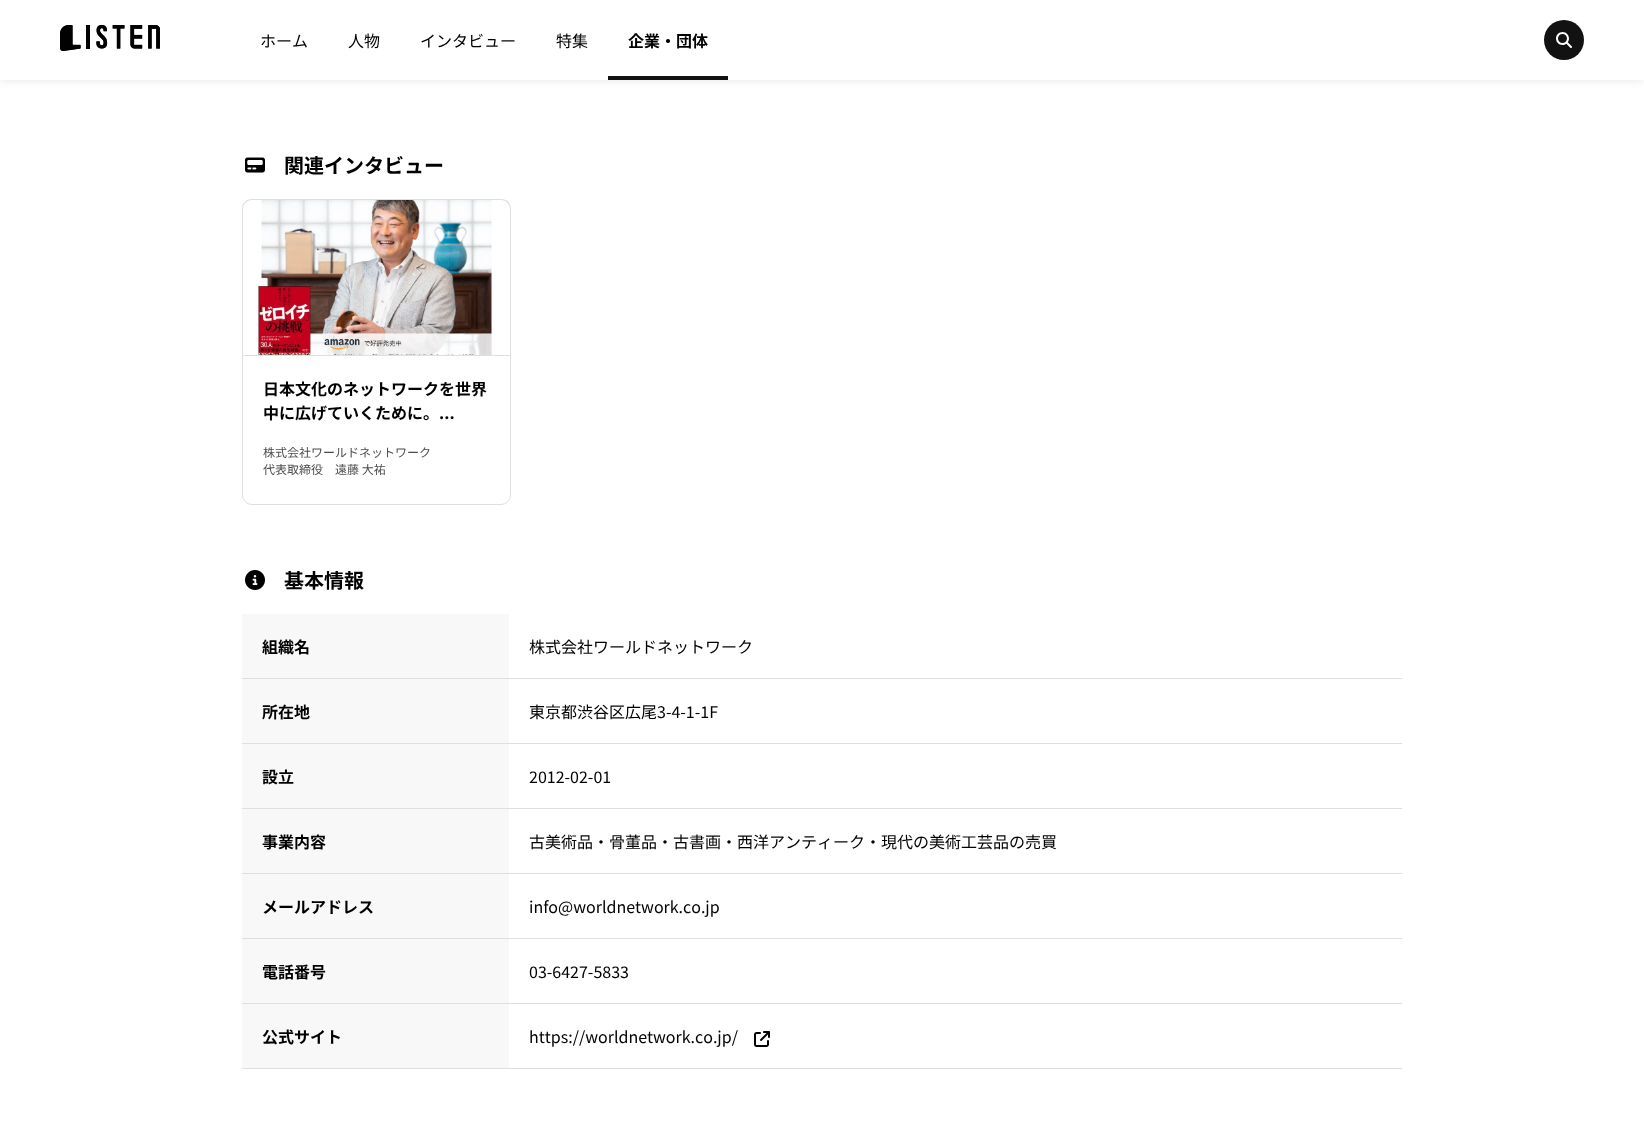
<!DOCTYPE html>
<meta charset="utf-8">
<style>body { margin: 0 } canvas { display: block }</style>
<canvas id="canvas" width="1644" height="1121"></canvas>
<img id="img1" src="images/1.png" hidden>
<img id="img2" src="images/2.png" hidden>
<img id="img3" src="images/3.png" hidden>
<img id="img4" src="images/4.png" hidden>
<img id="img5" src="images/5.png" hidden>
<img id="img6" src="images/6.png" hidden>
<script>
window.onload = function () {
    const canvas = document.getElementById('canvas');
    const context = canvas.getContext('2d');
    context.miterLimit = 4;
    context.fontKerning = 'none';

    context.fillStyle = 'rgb(255, 255, 255)';
    context.fillRect(0, 0, 1644, 1121);
    context.fillStyle = 'rgba(0, 0, 0, 0.1)';
    context.filter = 'blur(5px)';
    context.beginPath();
    context.rect(0, 0, 1644, 80);
    context.fill();
    context.filter = 'none';
    context.fillStyle = 'rgb(255, 255, 255)';
    context.fillRect(0, 0, 1644, 80);
    context.drawImage(document.getElementById('img1'), 60, 25, 100, 26);
    context.fillStyle = 'rgb(18, 18, 18)';
    context.fillRect(608, 76, 120, 4);
    context.beginPath();
    context.arc(1564, 40, 20, 0, 2 * Math.PI);
    context.fill();
    context.drawImage(document.getElementById('img2'), 1556, 32, 16, 16);
    context.drawImage(document.getElementById('img3'), 245, 157, 20, 16);
    context.fillStyle = 'rgb(223, 223, 223)';
    context.beginPath();
    context.moveTo(252, 199);
    context.lineTo(501, 199);
    context.bezierCurveTo(507, 199, 511, 203, 511, 209);
    context.lineTo(511, 355);
    context.lineTo(242, 355);
    context.lineTo(242, 209);
    context.bezierCurveTo(242, 203, 246, 199, 252, 199);
    context.closePath();
    context.moveTo(252, 200);
    context.lineTo(501, 200);
    context.bezierCurveTo(506, 200, 510, 204, 510, 209);
    context.lineTo(510, 355);
    context.lineTo(243, 355);
    context.lineTo(243, 209);
    context.bezierCurveTo(243, 204, 247, 200, 252, 200);
    context.closePath();
    context.fill('evenodd');
    context.drawImage(document.getElementById('img4'), 256, 200, 237, 155);
    context.beginPath();
    context.roundRect(242.5, 355.5, 268, 149, [0, 0, 9.5, 9.5]);
    context.strokeStyle = 'rgb(223, 223, 223)';
    context.stroke();
    context.drawImage(document.getElementById('img5'), 245, 570, 20, 20);
    context.fillRect(242, 678, 1160, 1);
    context.fillStyle = 'rgb(248, 248, 248)';
    context.fillRect(242, 614, 267, 64);
    context.fillStyle = 'rgb(223, 223, 223)';
    context.fillRect(242, 743, 1160, 1);
    context.fillStyle = 'rgb(248, 248, 248)';
    context.fillRect(242, 679, 267, 64);
    context.fillStyle = 'rgb(223, 223, 223)';
    context.fillRect(242, 808, 1160, 1);
    context.fillStyle = 'rgb(248, 248, 248)';
    context.fillRect(242, 744, 267, 64);
    context.fillStyle = 'rgb(223, 223, 223)';
    context.fillRect(242, 873, 1160, 1);
    context.fillStyle = 'rgb(248, 248, 248)';
    context.fillRect(242, 809, 267, 64);
    context.fillStyle = 'rgb(223, 223, 223)';
    context.fillRect(242, 938, 1160, 1);
    context.fillStyle = 'rgb(248, 248, 248)';
    context.fillRect(242, 874, 267, 64);
    context.fillStyle = 'rgb(223, 223, 223)';
    context.fillRect(242, 1003, 1160, 1);
    context.fillStyle = 'rgb(248, 248, 248)';
    context.fillRect(242, 939, 267, 64);
    context.fillStyle = 'rgb(223, 223, 223)';
    context.fillRect(242, 1068, 1160, 1);
    context.fillStyle = 'rgb(248, 248, 248)';
    context.fillRect(242, 1004, 267, 64);
    context.drawImage(document.getElementById('img6'), 754, 1031, 16, 16);
    context.font = '16px Noto Sans JP';
    context.fillStyle = 'rgb(0, 0, 0)';
    context.fillText('ホーム', 260, 47);
    context.fillText('人物', 348, 47);
    context.fillText('インタビュー', 420, 47);
    context.fillText('特集', 556, 47);
    context.font = 'bold 16px Noto Sans JP';
    context.fillText('企業・団体', 628, 47);
    context.font = 'bold 20px Noto Sans JP';
    context.fillText('関連インタビュー', 284, 173);
    context.font = 'bold 16px Noto Sans JP';
    context.fillText('日本文化のネットワークを世界', 263, 395);
    context.fillText('中に広げていくために。...', 263, 419);
    context.font = '12px Noto Sans JP';
    context.fillStyle = 'rgb(76, 76, 76)';
    context.fillText('株式会社ワールドネットワーク', 263, 457);
    context.fillText('代表取締役　遠藤 大祐', 263, 474);
    context.font = 'bold 20px Noto Sans JP';
    context.fillStyle = 'rgb(0, 0, 0)';
    context.fillText('基本情報', 284, 588);
    context.font = 'bold 16px Noto Sans JP';
    context.fillText('組織名', 262, 653);
    context.font = '16px Noto Sans JP';
    context.fillText('株式会社ワールドネットワーク', 529, 653);
    context.font = 'bold 16px Noto Sans JP';
    context.fillText('所在地', 262, 718);
    context.font = '16px Noto Sans JP';
    context.fillText('東京都渋谷区広尾3-4-1-1F', 529, 718);
    context.font = 'bold 16px Noto Sans JP';
    context.fillText('設立', 262, 783);
    context.font = '16px Noto Sans JP';
    context.fillText('2012-02-01', 529, 783);
    context.font = 'bold 16px Noto Sans JP';
    context.fillText('事業内容', 262, 848);
    context.font = '16px Noto Sans JP';
    context.fillText('古美術品・骨董品・古書画・西洋アンティーク・現代の美術工芸品の売買', 529, 848);
    context.font = 'bold 16px Noto Sans JP';
    context.fillText('メールアドレス', 262, 913);
    context.font = '16px Noto Sans JP';
    context.fillText('info@worldnetwork.co.jp', 529, 913);
    context.font = 'bold 16px Noto Sans JP';
    context.fillText('電話番号', 262, 978);
    context.font = '16px Noto Sans JP';
    context.fillText('03-6427-5833', 529, 978);
    context.font = 'bold 16px Noto Sans JP';
    context.fillText('公式サイト', 262, 1043);
    context.font = '16px Noto Sans JP';
    context.fillText('https://worldnetwork.co.jp/', 529, 1043);
};
</script>
